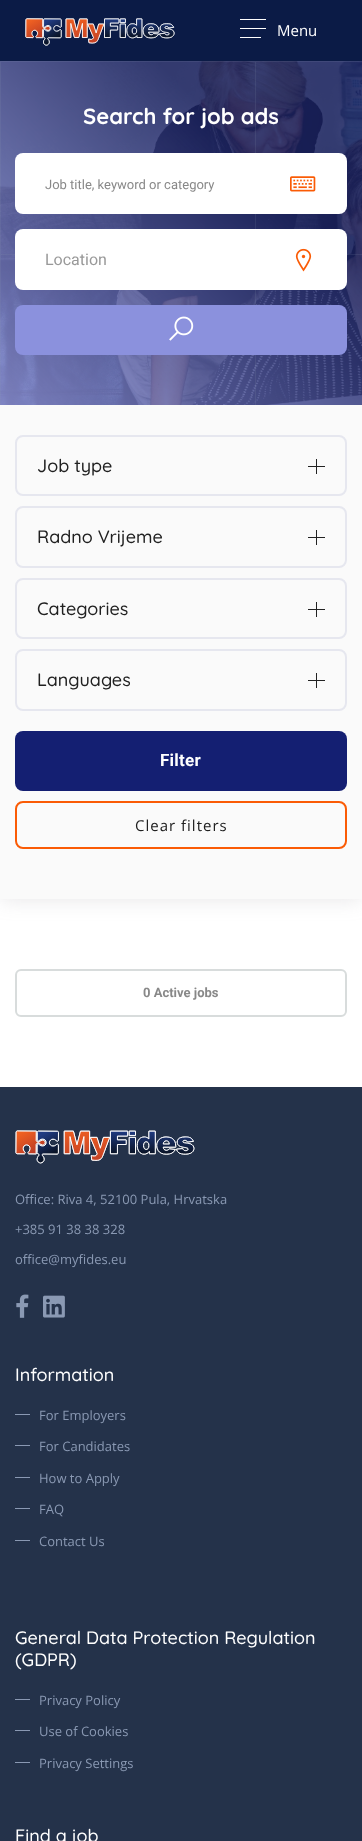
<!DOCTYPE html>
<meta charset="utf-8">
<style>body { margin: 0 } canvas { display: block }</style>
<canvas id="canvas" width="362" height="1841"></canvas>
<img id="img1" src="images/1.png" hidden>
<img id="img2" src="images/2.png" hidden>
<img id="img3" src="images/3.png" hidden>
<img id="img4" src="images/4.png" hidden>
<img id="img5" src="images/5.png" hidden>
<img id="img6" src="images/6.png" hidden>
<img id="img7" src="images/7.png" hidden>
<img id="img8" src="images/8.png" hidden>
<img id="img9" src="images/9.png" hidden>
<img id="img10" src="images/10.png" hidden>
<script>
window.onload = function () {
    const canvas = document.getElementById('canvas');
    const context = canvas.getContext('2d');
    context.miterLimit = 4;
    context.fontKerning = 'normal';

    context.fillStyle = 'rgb(255, 255, 255)';
    context.fillRect(0, 0, 362, 1841);
    context.fillStyle = 'rgb(11, 27, 70)';
    context.fillRect(0, 0, 362, 61);
    context.drawImage(document.getElementById('img1'), 25, 18, 150, 28);
    context.drawImage(document.getElementById('img2'), 240, 19, 26, 19);
    context.fillStyle = 'rgba(151, 144, 153, 0.22)';
    context.filter = 'blur(10px)';
    context.beginPath();
    context.rect(0, 406, 362, 494);
    context.fill();
    context.filter = 'none';
    context.drawImage(document.getElementById('img3'), 0, 61, 362, 344);
    context.drawImage(document.getElementById('img4'), 0, 61, 362, 344);
    context.fillStyle = 'rgb(255, 255, 255)';
    context.beginPath();
    context.roundRect(15, 153, 332, 61, 8);
    context.fill();
    context.drawImage(document.getElementById('img5'), 290, 176, 26, 16);
    context.beginPath();
    context.roundRect(15, 229, 332, 61, 8);
    context.fill();
    context.drawImage(document.getElementById('img6'), 295, 248, 17, 24);
    context.fillStyle = 'rgb(139, 145, 221)';
    context.beginPath();
    context.roundRect(15, 305, 332, 50, 8);
    context.fill();
    context.drawImage(document.getElementById('img7'), 169, 316, 25, 25);
    context.fillStyle = 'rgb(250, 250, 250)';
    context.fillRect(0, 405, 362, 494);
    context.beginPath();
    context.roundRect(16, 436, 330, 59, 7);
    context.strokeStyle = 'rgb(230, 231, 239)';
    context.lineWidth = 2;
    context.stroke();
    context.fillStyle = 'rgb(34, 34, 34)';
    context.fillRect(308, 466, 17, 1);
    context.fillRect(316, 459, 1, 15);
    context.beginPath();
    context.roundRect(16, 507, 330, 60, 7);
    context.stroke();
    context.fillRect(308, 537, 17, 1);
    context.fillRect(316, 530, 1, 15);
    context.beginPath();
    context.roundRect(16, 579, 330, 59, 7);
    context.stroke();
    context.fillRect(308, 609, 17, 1);
    context.fillRect(316, 602, 1, 15);
    context.beginPath();
    context.roundRect(16, 650, 330, 60, 7);
    context.stroke();
    context.fillRect(308, 680, 17, 1);
    context.fillRect(316, 673, 1, 15);
    context.fillStyle = 'rgb(20, 31, 114)';
    context.beginPath();
    context.roundRect(15, 731, 332, 60, 8);
    context.fill();
    context.beginPath();
    context.roundRect(16, 802, 330, 46, 7);
    context.strokeStyle = 'rgb(250, 91, 5)';
    context.stroke();
    context.beginPath();
    context.roundRect(16, 970, 330, 46, 5);
    context.strokeStyle = 'rgb(216, 220, 220)';
    context.stroke();
    context.fillStyle = 'rgb(36, 50, 74)';
    context.fillRect(0, 1087, 362, 754);
    context.drawImage(document.getElementById('img8'), 15, 1130, 180, 34);
    context.drawImage(document.getElementById('img9'), 16, 1294, 13, 24);
    context.drawImage(document.getElementById('img10'), 43, 1295, 22, 23);
    context.fillStyle = 'rgb(138, 153, 179)';
    context.fillRect(15, 1414, 15, 1);
    context.fillRect(15, 1445, 15, 1);
    context.fillRect(15, 1477, 15, 1);
    context.fillRect(15, 1508, 15, 1);
    context.fillRect(15, 1540, 15, 1);
    context.fillRect(15, 1699, 15, 1);
    context.fillRect(15, 1730, 15, 1);
    context.fillRect(15, 1762, 15, 1);
    context.font = '15px Open Sans';
    context.fillStyle = 'rgb(255, 255, 255)';
    context.fillText('Menu', 277, 36);
    context.font = 'bold 22px Quicksand';
    context.fillText('Search for job ads', 83, 124);
    context.font = '13px Roboto';
    context.fillStyle = 'rgb(136, 136, 136)';
    context.fillText('Job title, keyword or category', 45, 189);
    context.font = '16px Roboto';
    context.fillStyle = 'rgb(153, 153, 153)';
    context.fillText('Location', 45, 265);
    context.font = '500 18px Quicksand';
    context.fillStyle = 'rgb(32, 32, 32)';
    context.fillText('Job type', 37, 472);
    context.fillText('Radno Vrijeme', 37, 543);
    context.fillText('Categories', 37, 615);
    context.fillText('Languages', 37, 686);
    context.letterSpacing = '0.25px';
    context.font = 'bold 17px Roboto';
    context.fillStyle = 'rgb(255, 255, 255)';
    context.fillText('Filter', 160, 766);
    context.letterSpacing = '1px';
    context.font = '15px Open Sans';
    context.fillStyle = 'rgb(32, 32, 32)';
    context.fillText('Clear filters', 135, 831);
    context.letterSpacing = '0px';
    context.font = 'bold 13px Roboto';
    context.fillStyle = 'rgb(136, 136, 136)';
    context.fillText('0 Active jobs', 143, 997);
    context.font = '13px Open Sans';
    context.fillStyle = 'rgb(138, 153, 179)';
    context.fillText('Office: Riva 4, 52100 Pula, Hrvatska', 15, 1204);
    context.fillText('+385 91 38 38 328', 15, 1234);
    context.fillText('office@myfides.eu', 15, 1264);
    context.font = '500 18px Quicksand';
    context.fillStyle = 'rgb(255, 255, 255)';
    context.fillText('Information', 15, 1381);
    context.font = '13px Open Sans';
    context.fillStyle = 'rgb(138, 153, 179)';
    context.fillText('For Employers', 39, 1420);
    context.fillText('For Candidates', 39, 1451);
    context.fillText('How to Apply', 39, 1483);
    context.fillText('FAQ', 39, 1514);
    context.fillText('Contact Us', 39, 1546);
    context.font = '500 18px Quicksand';
    context.fillStyle = 'rgb(255, 255, 255)';
    context.fillText('General Data Protection Regulation', 15, 1644);
    context.fillText('(GDPR)', 15, 1666);
    context.font = '13px Open Sans';
    context.fillStyle = 'rgb(138, 153, 179)';
    context.fillText('Privacy Policy', 39, 1705);
    context.fillText('Use of Cookies', 39, 1736);
    context.fillText('Privacy Settings', 39, 1768);
    context.font = '500 18px Quicksand';
    context.fillStyle = 'rgb(255, 255, 255)';
    context.fillText('Find a job', 15, 1842);
};
</script>
